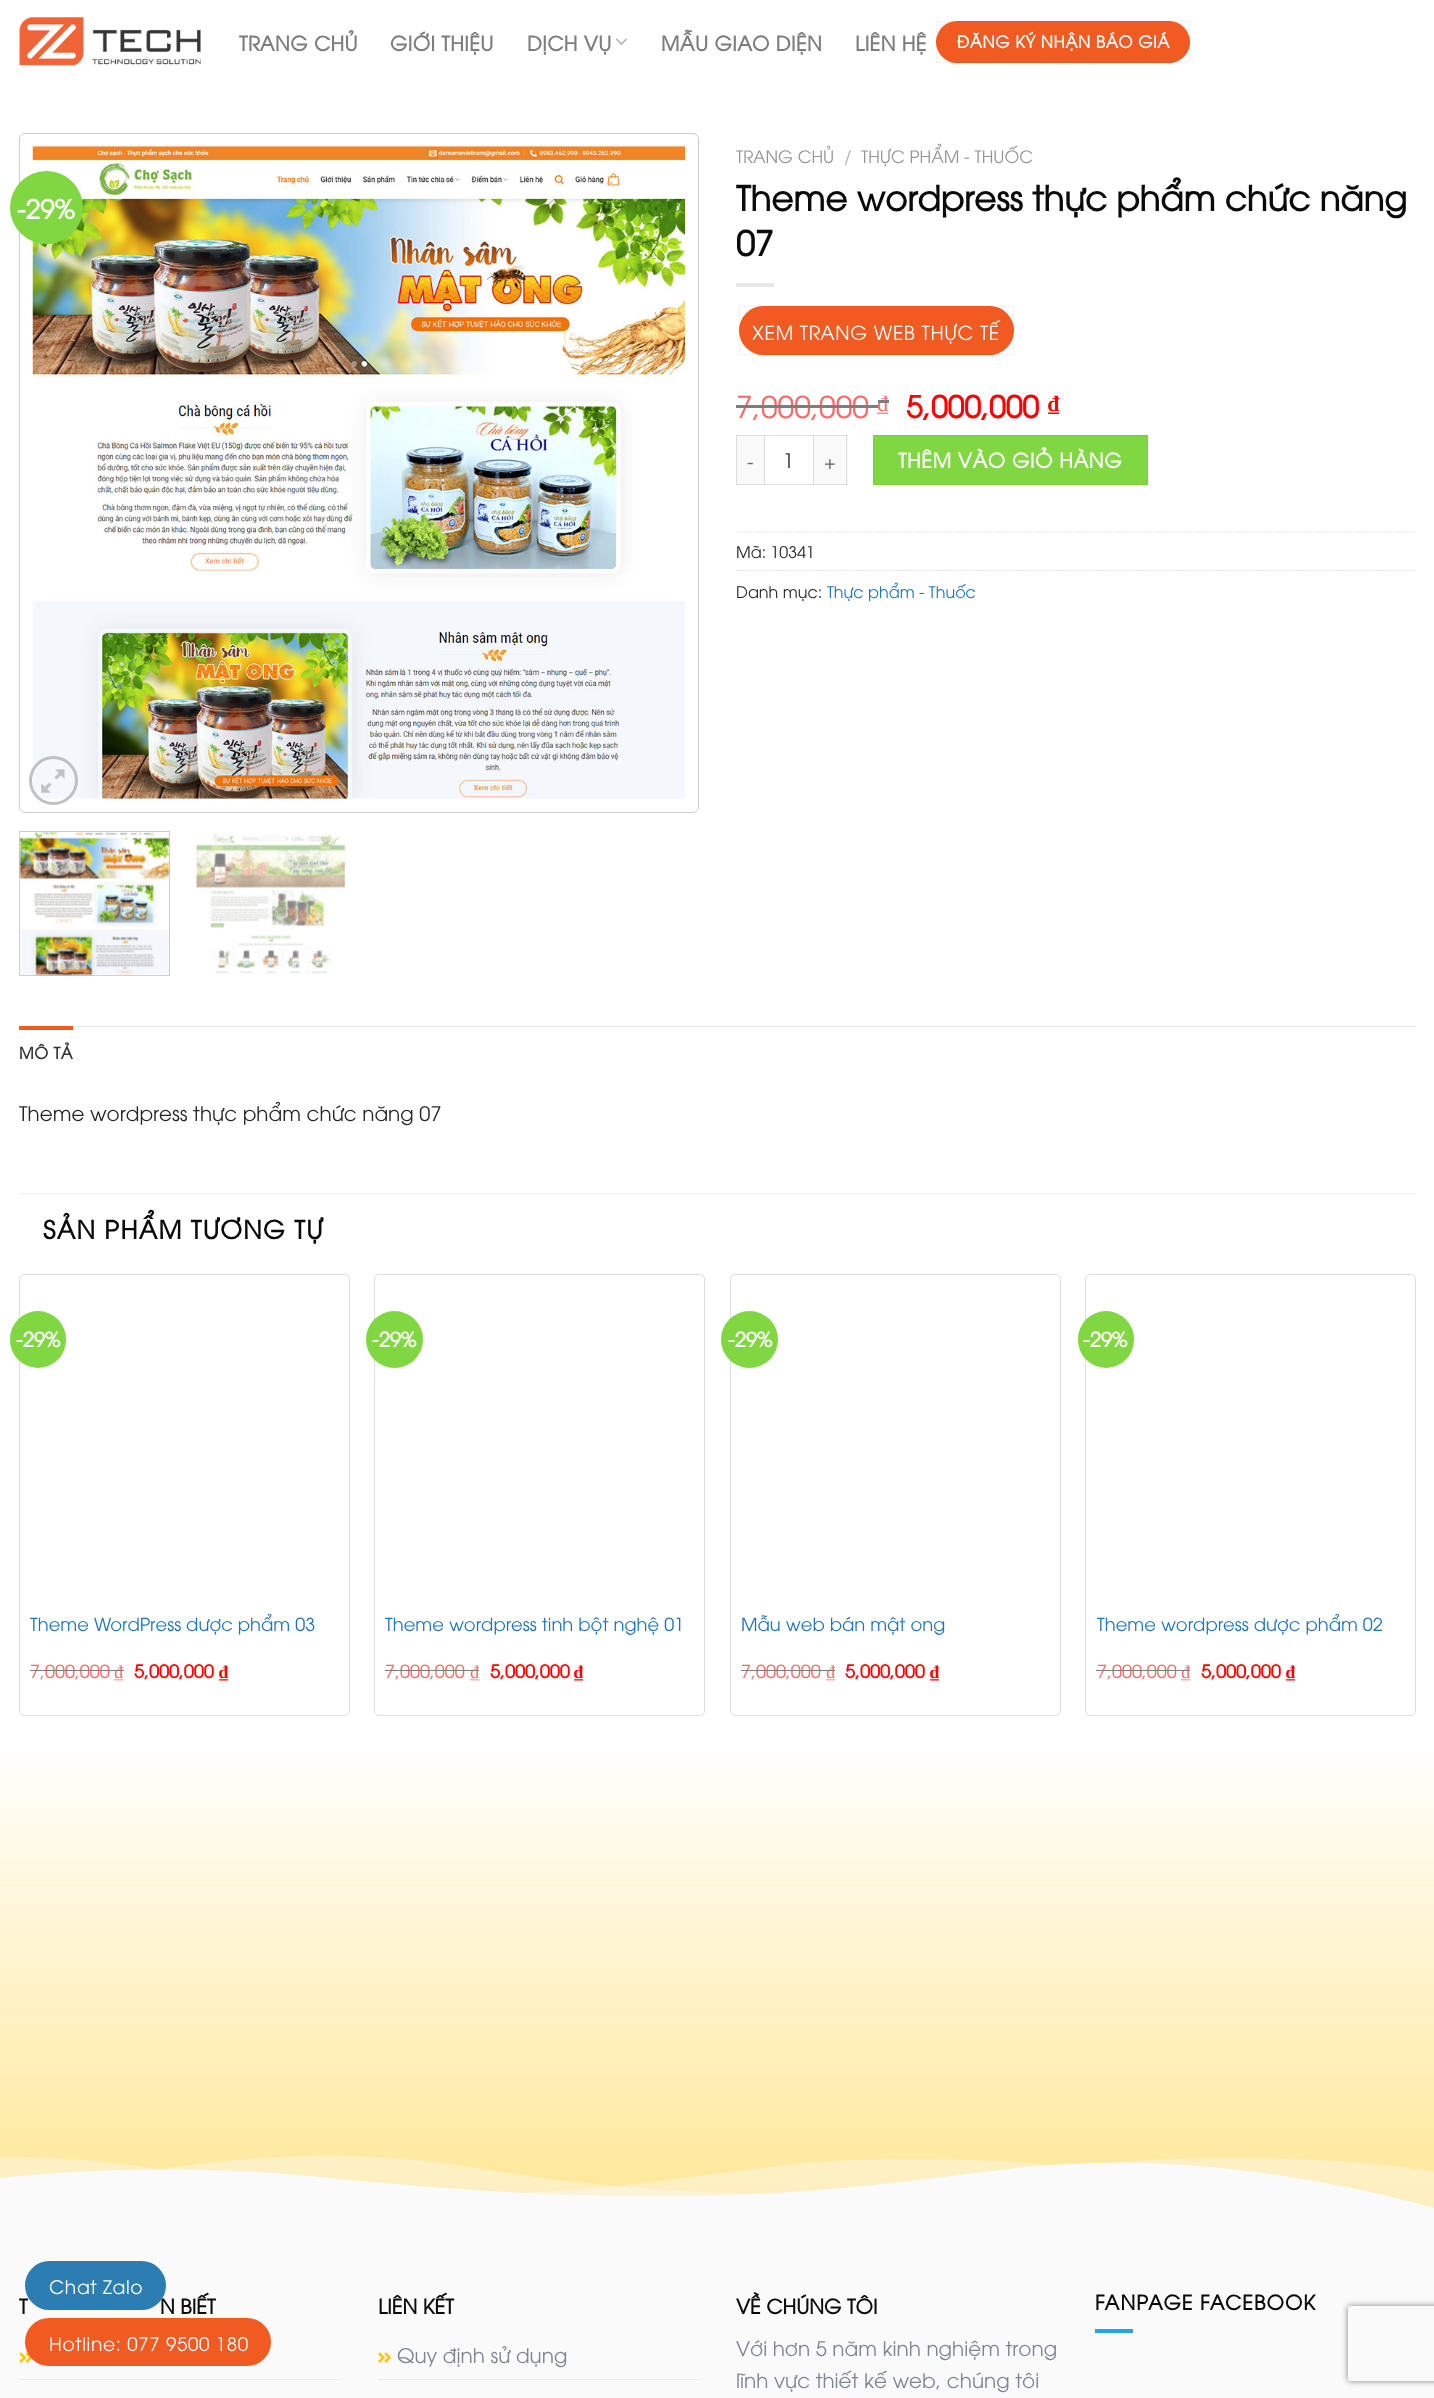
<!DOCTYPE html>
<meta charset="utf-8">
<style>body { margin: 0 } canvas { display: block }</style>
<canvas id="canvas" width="1434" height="2398"></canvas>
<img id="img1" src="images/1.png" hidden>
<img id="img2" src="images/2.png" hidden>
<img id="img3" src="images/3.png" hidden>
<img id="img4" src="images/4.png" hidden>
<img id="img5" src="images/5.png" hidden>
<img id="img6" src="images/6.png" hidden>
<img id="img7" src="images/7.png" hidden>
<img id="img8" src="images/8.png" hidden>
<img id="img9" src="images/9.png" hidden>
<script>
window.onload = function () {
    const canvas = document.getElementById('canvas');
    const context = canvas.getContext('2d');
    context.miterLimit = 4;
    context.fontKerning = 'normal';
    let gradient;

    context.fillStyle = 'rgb(255, 255, 255)';
    context.fillRect(0, 0, 1434, 2398);
    context.drawImage(document.getElementById('img1'), 19, 17, 182, 49);
    context.drawImage(document.getElementById('img2'), 616, 38, 11, 7);
    context.fillStyle = 'rgb(241, 90, 33)';
    context.beginPath();
    context.roundRect(936, 21, 254, 42, 21);
    context.fill();
    context.strokeStyle = 'rgba(0, 0, 0, 0.05)';
    context.strokeRect(936.5, 21.5, 253, 41);
    context.beginPath();
    context.roundRect(19.5, 133.5, 679, 679, 5.5);
    context.strokeStyle = 'rgb(205, 205, 205)';
    context.stroke();
    context.drawImage(document.getElementById('img3'), 32, 146, 653, 653);
    context.fillStyle = 'rgb(129, 215, 66)';
    context.beginPath();
    context.arc(46.5, 207.5, 36.5, 0, 2 * Math.PI);
    context.fill();
    context.beginPath();
    context.arc(53.5, 780.5, 23, 0, 2 * Math.PI);
    context.strokeStyle = 'rgb(192, 192, 192)';
    context.lineWidth = 3;
    context.stroke();
    context.drawImage(document.getElementById('img4'), 41, 769, 24, 24);
    context.strokeStyle = 'rgb(204, 204, 204)';
    context.lineWidth = 1;
    context.strokeRect(19.5, 831.5, 150, 144);
    context.drawImage(document.getElementById('img5'), 19, 832, 150, 144);
    context.drawImage(document.getElementById('img6'), 195, 832, 151, 142);
    context.fillStyle = 'rgb(230, 230, 230)';
    context.fillRect(736, 283, 38, 4);
    context.fillStyle = 'rgb(241, 90, 33)';
    context.beginPath();
    context.roundRect(739, 306, 275, 49, 24.5);
    context.fill();
    context.strokeStyle = 'rgba(0, 0, 0, 0.05)';
    context.strokeRect(739.5, 306.5, 274, 48);
    context.fillStyle = 'rgb(249, 249, 249)';
    context.fillRect(737, 436, 27, 48);
    context.fillStyle = 'rgb(221, 221, 221)';
    context.fillRect(736, 435, 28, 1);
    context.fillRect(736, 484, 28, 1);
    context.fillRect(736, 435, 1, 50);
    context.strokeStyle = 'rgb(221, 221, 221)';
    context.strokeRect(764.5, 435.5, 49, 49);
    context.fillStyle = 'rgb(249, 249, 249)';
    context.fillRect(814, 436, 34, 48);
    context.fillStyle = 'rgb(221, 221, 221)';
    context.fillRect(814, 435, 34, 1);
    context.fillRect(846, 435, 1, 50);
    context.fillRect(814, 484, 34, 1);
    context.fillStyle = 'rgb(129, 215, 66)';
    context.beginPath();
    context.rect(873.5, 435.5, 274, 49);
    context.fill();
    context.strokeStyle = 'rgb(123, 204, 63)';
    context.stroke();
    context.beginPath();
    context.moveTo(736, 532);
    context.lineTo(1416, 532);
    context.strokeStyle = 'rgb(221, 221, 221)';
    context.lineWidth = 1.2;
    context.setLineDash([1.25, 1.25]);
    context.stroke();
    context.beginPath();
    context.moveTo(736, 570.5);
    context.lineTo(1416, 570.5);
    context.stroke();
    context.fillStyle = 'rgb(236, 236, 236)';
    context.fillRect(73, 1026, 1343, 1);
    context.fillStyle = 'rgb(241, 90, 33)';
    context.fillRect(19, 1026, 54, 4);
    context.fillStyle = 'rgb(236, 236, 236)';
    context.fillRect(19, 1193, 1397, 1);
    context.beginPath();
    context.roundRect(19.5, 1274.5, 330, 441, 4.5);
    context.strokeStyle = 'rgb(222, 222, 222)';
    context.lineWidth = 1;
    context.setLineDash([]);
    context.stroke();
    context.fillStyle = 'rgb(129, 215, 66)';
    context.beginPath();
    context.roundRect(10, 1311, 56, 57, 28);
    context.fill();
    context.beginPath();
    context.roundRect(374.5, 1274.5, 330, 441, 4.5);
    context.stroke();
    context.beginPath();
    context.arc(394.5, 1339.5, 28.5, 0, 2 * Math.PI);
    context.fill();
    context.beginPath();
    context.roundRect(730.5, 1274.5, 330, 441, 4.5);
    context.stroke();
    context.beginPath();
    context.arc(749.5, 1339.5, 28.5, 0, 2 * Math.PI);
    context.fill();
    context.beginPath();
    context.roundRect(1085.5, 1274.5, 330, 441, 4.5);
    context.stroke();
    context.beginPath();
    context.roundRect(1078, 1311, 56, 57, 28);
    context.fill();
    gradient = context.createLinearGradient(718, 2253, 718, 1740);
    gradient.addColorStop(0, 'rgb(255, 229, 141)');
    gradient.addColorStop(1, 'rgb(255, 255, 255)');
    context.fillStyle = gradient;
    context.fillRect(0, 1751, 1434, 457);
    context.drawImage(document.getElementById('img7'), 0, 2155, 1434, 98);
    context.fillStyle = 'rgb(250, 250, 250)';
    context.fillRect(0, 2253, 1434, 145);
    context.drawImage(document.getElementById('img8'), 19, 2352, 13, 11);
    context.fillStyle = 'rgb(236, 236, 236)';
    context.fillRect(19, 2379, 321, 1);
    context.drawImage(document.getElementById('img9'), 378, 2352, 13, 11);
    context.fillRect(378, 2379, 321, 1);
    context.fillStyle = 'rgb(42, 160, 239)';
    context.fillRect(1095, 2329, 38, 4);
    context.fillStyle = 'rgb(241, 90, 33)';
    context.beginPath();
    context.roundRect(25, 2318, 246, 48, 24);
    context.fill();
    context.save();
    context.beginPath();
    context.moveTo(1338, 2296);
    context.lineTo(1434, 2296);
    context.lineTo(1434, 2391);
    context.lineTo(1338, 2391);
    context.closePath();
    context.moveTo(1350.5, 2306);
    context.lineTo(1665.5, 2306);
    context.bezierCurveTo(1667, 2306, 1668, 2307, 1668, 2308.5);
    context.lineTo(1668, 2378.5);
    context.bezierCurveTo(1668, 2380, 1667, 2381, 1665.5, 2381);
    context.lineTo(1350.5, 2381);
    context.bezierCurveTo(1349, 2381, 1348, 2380, 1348, 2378.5);
    context.lineTo(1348, 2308.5);
    context.bezierCurveTo(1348, 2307, 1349, 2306, 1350.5, 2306);
    context.closePath();
    context.clip('evenodd');
    context.fillStyle = 'rgb(128, 128, 128)';
    context.filter = 'blur(3px)';
    context.beginPath();
    context.roundRect(1348, 2306, 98, 75, 2.5);
    context.fill();
    context.filter = 'none';
    context.restore();
    context.letterSpacing = '0.4px';
    context.font = 'bold 20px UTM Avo';
    context.fillStyle = 'rgb(125, 125, 125)';
    context.fillText('TRANG CHỦ', 239, 51);
    context.fillText('GIỚI THIỆU', 390, 51);
    context.fillText('DỊCH VỤ', 527, 51);
    context.fillText('MẪU GIAO DIỆN', 661, 51);
    context.fillText('LIÊN HỆ', 855, 51);
    context.letterSpacing = '0.5px';
    context.font = 'bold 16.5px UTM Avo';
    context.fillStyle = 'rgb(255, 255, 255)';
    context.fillText('ĐĂNG KÝ NHẬN BÁO GIÁ', 957, 48);
    context.letterSpacing = '0px';
    context.font = 'bold 26px UTM Avo';
    context.fillText('-29%', 17, 219);
    context.font = '17px UTM Avo';
    context.fillStyle = 'rgb(148, 148, 148)';
    context.fillText('TRANG CHỦ', 736, 163);
    context.fillStyle = 'rgb(178, 178, 178)';
    context.fillText('/', 844, 163);
    context.fillStyle = 'rgb(148, 148, 148)';
    context.fillText('THỰC PHẨM - THUỐC', 861, 163);
    context.font = 'bold 34px UTM Avo';
    context.fillStyle = 'rgb(10, 10, 10)';
    context.fillText('Theme wordpress thực phẩm chức năng', 736, 211);
    context.fillText('07', 736, 256);
    context.letterSpacing = '0.6px';
    context.font = '19.4px UTM Avo';
    context.fillStyle = 'rgb(255, 255, 255)';
    context.fillText('XEM TRANG WEB THỰC TẾ', 752, 340);
    context.letterSpacing = '0px';
    context.font = '30px UTM Avo';
    context.fillStyle = 'rgb(255, 102, 102)';
    context.fillText('7,000,000', 736, 418);
    context.fillStyle = 'rgb(125, 125, 125)';
    context.fillRect(736, 405, 142, 3);
    context.font = '22px Liberation Serif';
    context.fillStyle = 'rgb(255, 102, 102)';
    context.fillText('₫', 877, 411);
    context.fillStyle = 'rgb(125, 125, 125)';
    context.fillRect(878, 400, 11, 3);
    context.font = 'bold 30px UTM Avo';
    context.fillStyle = 'rgb(255, 0, 0)';
    context.fillText('5,000,000', 906, 418);
    context.font = 'bold 22px Liberation Serif';
    context.fillText('₫', 1048, 411);
    context.letterSpacing = '0.6px';
    context.font = '19.4px UTM Avo';
    context.fillStyle = 'rgb(102, 102, 102)';
    context.fillText('-', 747, 469);
    context.letterSpacing = '0px';
    context.font = '20px UTM Avo';
    context.fillStyle = 'rgb(51, 51, 51)';
    context.fillText('1', 783, 468);
    context.letterSpacing = '0.6px';
    context.font = '19.4px UTM Avo';
    context.fillStyle = 'rgb(102, 102, 102)';
    context.fillText('+', 824, 469);
    context.font = 'bold 20px UTM Avo';
    context.fillStyle = 'rgb(255, 255, 255)';
    context.fillText('THÊM VÀO GIỎ HÀNG', 898, 468);
    context.letterSpacing = '0px';
    context.font = '16px UTM Avo';
    context.fillStyle = 'rgb(38, 38, 38)';
    context.fillText('Mã: 10341', 736, 558);
    context.fillText('Danh mục:', 736, 598);
    context.fillStyle = 'rgb(30, 115, 190)';
    context.fillText('Thực phẩm - Thuốc', 827, 598);
    context.letterSpacing = '0.5px';
    context.font = 'bold 16px UTM Avo';
    context.fillStyle = 'rgb(51, 51, 51)';
    context.fillText('MÔ TẢ', 19, 1059);
    context.letterSpacing = '0px';
    context.font = '20px UTM Avo';
    context.fillStyle = 'rgb(38, 38, 38)';
    context.fillText('Theme wordpress thực phẩm chức năng 07', 19, 1121);
    context.letterSpacing = '1.25px';
    context.font = 'bold 25px UTM Avo';
    context.fillStyle = 'rgb(10, 10, 10)';
    context.fillText('SẢN PHẨM TƯƠNG TỰ', 43, 1239);
    context.letterSpacing = '0px';
    context.font = 'bold 20px UTM Avo';
    context.fillStyle = 'rgb(255, 255, 255)';
    context.fillText('-29%', 16, 1347);
    context.font = '18px UTM Avo';
    context.fillStyle = 'rgb(30, 115, 190)';
    context.fillText('Theme WordPress dược phẩm 03', 30, 1631);
    context.fillStyle = 'rgb(255, 102, 102)';
    context.fillText('7,000,000', 30, 1678);
    context.fillStyle = 'rgb(125, 125, 125)';
    context.fillRect(30, 1670, 85, 1);
    context.font = '18px Liberation Serif';
    context.fillStyle = 'rgb(255, 102, 102)';
    context.fillText('₫', 114, 1678);
    context.fillStyle = 'rgb(125, 125, 125)';
    context.fillRect(115, 1670, 9, 1);
    context.font = 'bold 18px UTM Avo';
    context.fillStyle = 'rgb(255, 0, 0)';
    context.fillText('5,000,000', 134, 1678);
    context.font = 'bold 18px Liberation Serif';
    context.fillText('₫', 219, 1678);
    context.font = 'bold 20px UTM Avo';
    context.fillStyle = 'rgb(255, 255, 255)';
    context.fillText('-29%', 372, 1347);
    context.font = '18px UTM Avo';
    context.fillStyle = 'rgb(30, 115, 190)';
    context.fillText('Theme wordpress tinh bột nghệ 01', 385, 1631);
    context.fillStyle = 'rgb(255, 102, 102)';
    context.fillText('7,000,000', 385, 1678);
    context.fillStyle = 'rgb(125, 125, 125)';
    context.fillRect(385, 1670, 85, 1);
    context.font = '18px Liberation Serif';
    context.fillStyle = 'rgb(255, 102, 102)';
    context.fillText('₫', 470, 1678);
    context.fillStyle = 'rgb(125, 125, 125)';
    context.fillRect(470, 1670, 9, 1);
    context.font = 'bold 18px UTM Avo';
    context.fillStyle = 'rgb(255, 0, 0)';
    context.fillText('5,000,000', 490, 1678);
    context.font = 'bold 18px Liberation Serif';
    context.fillText('₫', 574, 1678);
    context.font = 'bold 20px UTM Avo';
    context.fillStyle = 'rgb(255, 255, 255)';
    context.fillText('-29%', 728, 1347);
    context.font = '18px UTM Avo';
    context.fillStyle = 'rgb(30, 115, 190)';
    context.fillText('Mẫu web bán mật ong', 741, 1631);
    context.fillStyle = 'rgb(255, 102, 102)';
    context.fillText('7,000,000', 741, 1678);
    context.fillStyle = 'rgb(125, 125, 125)';
    context.fillRect(741, 1670, 85, 1);
    context.font = '18px Liberation Serif';
    context.fillStyle = 'rgb(255, 102, 102)';
    context.fillText('₫', 826, 1678);
    context.fillStyle = 'rgb(125, 125, 125)';
    context.fillRect(826, 1670, 9, 1);
    context.font = 'bold 18px UTM Avo';
    context.fillStyle = 'rgb(255, 0, 0)';
    context.fillText('5,000,000', 845, 1678);
    context.font = 'bold 18px Liberation Serif';
    context.fillText('₫', 930, 1678);
    context.font = 'bold 20px UTM Avo';
    context.fillStyle = 'rgb(255, 255, 255)';
    context.fillText('-29%', 1083, 1347);
    context.font = '18px UTM Avo';
    context.fillStyle = 'rgb(30, 115, 190)';
    context.fillText('Theme wordpress dược phẩm 02', 1097, 1631);
    context.fillStyle = 'rgb(255, 102, 102)';
    context.fillText('7,000,000', 1097, 1678);
    context.fillStyle = 'rgb(125, 125, 125)';
    context.fillRect(1096, 1670, 85, 1);
    context.font = '18px Liberation Serif';
    context.fillStyle = 'rgb(255, 102, 102)';
    context.fillText('₫', 1181, 1678);
    context.fillStyle = 'rgb(125, 125, 125)';
    context.fillRect(1181, 1670, 9, 1);
    context.font = 'bold 18px UTM Avo';
    context.fillStyle = 'rgb(255, 0, 0)';
    context.fillText('5,000,000', 1201, 1678);
    context.font = 'bold 18px Liberation Serif';
    context.fillText('₫', 1286, 1678);
    context.font = 'bold 20px UTM Avo';
    context.fillStyle = 'rgb(10, 10, 10)';
    context.fillText('T', 19, 2314);
    context.fillText('N BIẾT', 160, 2314);
    context.fillText('LIÊN KẾT', 378, 2314);
    context.font = '20px UTM Avo';
    context.fillStyle = 'rgb(125, 132, 146)';
    context.fillText('Quy định sử dụng', 397, 2363);
    context.font = 'bold 20px UTM Avo';
    context.fillStyle = 'rgb(10, 10, 10)';
    context.fillText('VỀ CHÚNG TÔI', 736, 2314);
    context.font = '20px UTM Avo';
    context.fillStyle = 'rgb(125, 132, 146)';
    context.fillText('Với hơn 5 năm kinh nghiệm trong', 736, 2356);
    context.fillText('lĩnh vực thiết kế web, chúng tôi', 736, 2388);
    context.letterSpacing = '1px';
    context.font = 'bold 20px UTM Avo';
    context.fillStyle = 'rgb(10, 10, 10)';
    context.fillText('FANPAGE FACEBOOK', 1095, 2310);
    context.fillStyle = 'rgb(43, 125, 178)';
    context.beginPath();
    context.roundRect(25, 2261, 141, 49, 24.5);
    context.fill();
    context.letterSpacing = '0.6px';
    context.font = '18.75px UTM Avo';
    context.fillStyle = 'rgb(255, 255, 255)';
    context.fillText('Chat Zalo', 49, 2294);
    context.fillText('Hotline: 077 9500 180', 49, 2351);
};
</script>
